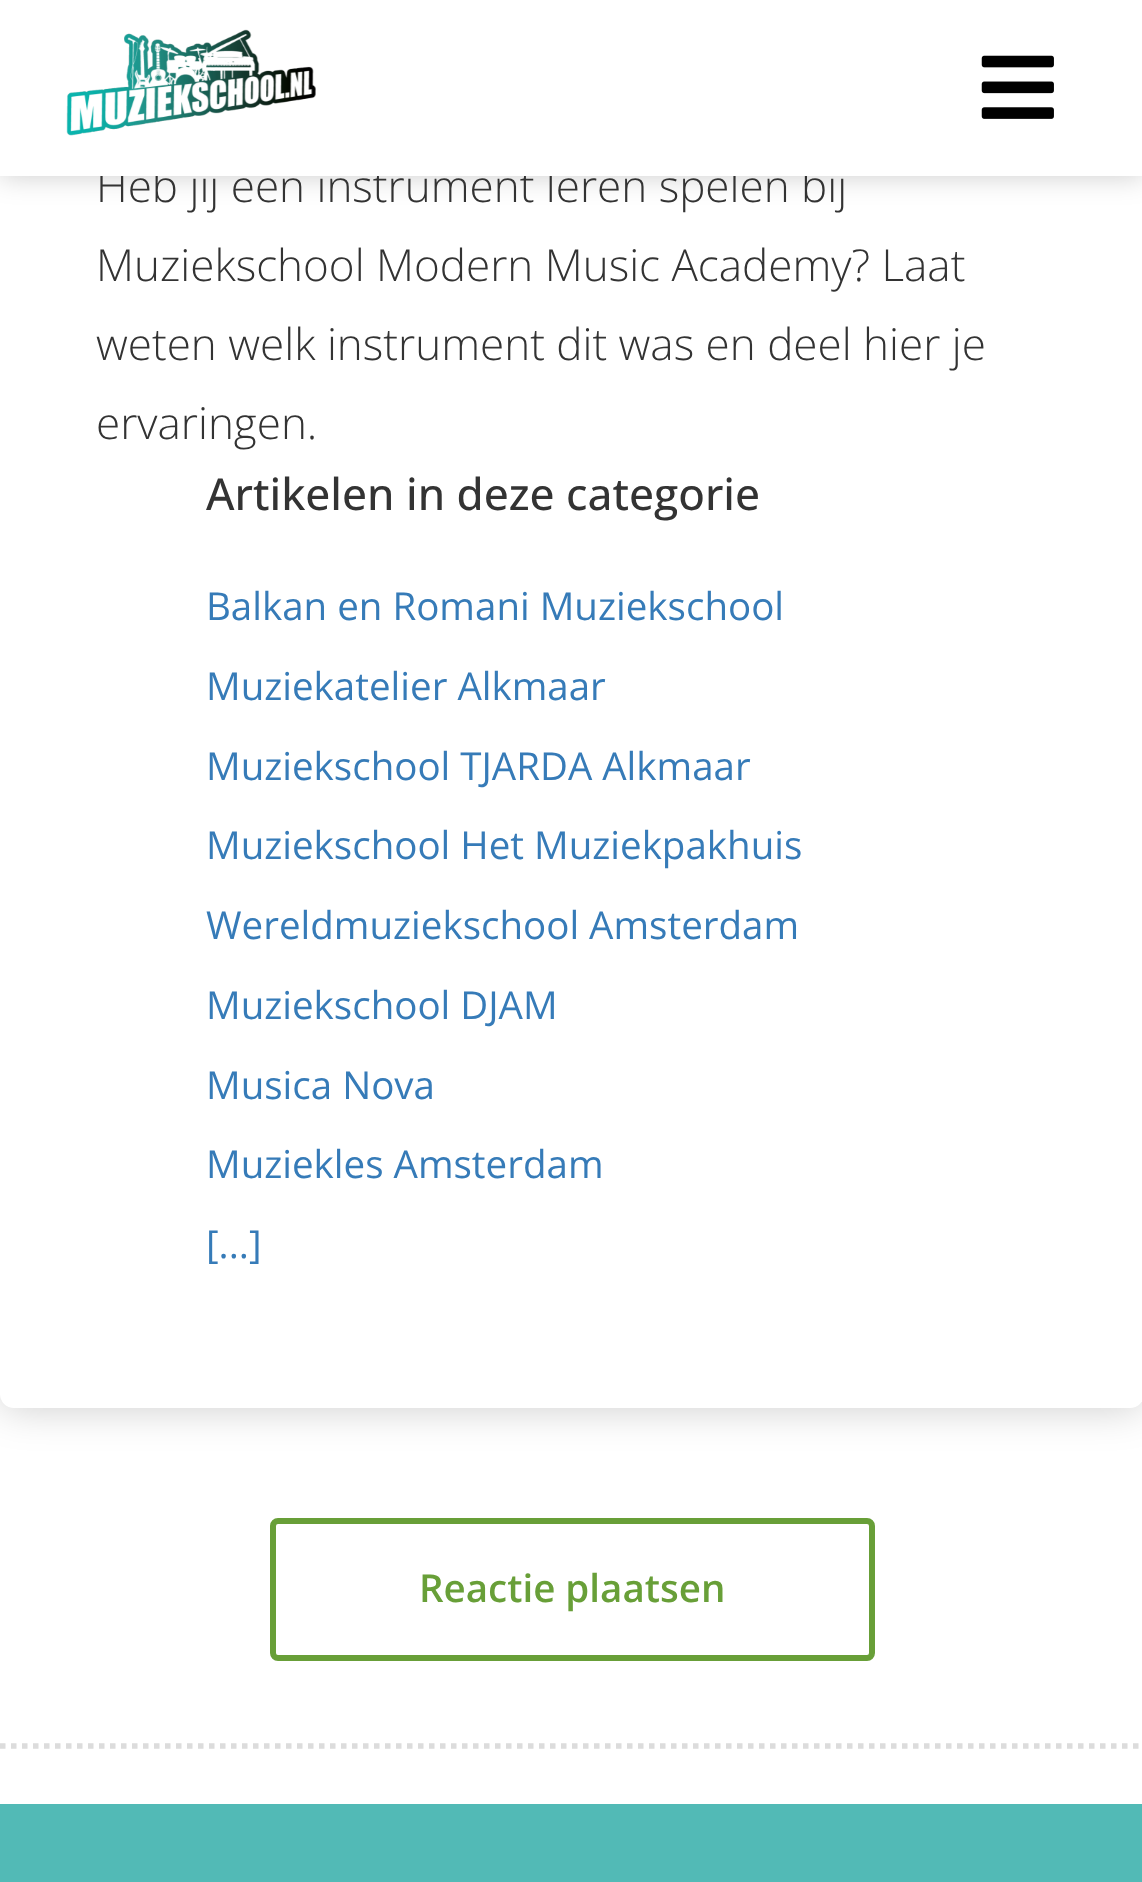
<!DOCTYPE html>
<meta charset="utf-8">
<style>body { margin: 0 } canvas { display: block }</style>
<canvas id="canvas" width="1142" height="1882"></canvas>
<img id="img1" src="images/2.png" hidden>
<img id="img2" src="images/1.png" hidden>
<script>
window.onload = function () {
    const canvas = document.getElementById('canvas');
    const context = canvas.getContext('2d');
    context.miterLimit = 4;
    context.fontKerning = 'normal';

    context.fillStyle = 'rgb(82, 186, 182)';
    context.fillRect(0, 0, 1142, 1882);
    context.fillStyle = 'rgb(255, 255, 255)';
    context.fillRect(0, 1394, 1142, 410);
    context.fillStyle = 'rgba(0, 0, 0, 0.2)';
    context.filter = 'blur(20.5px)';
    context.beginPath();
    context.roundRect(0, -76, 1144, 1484, 14);
    context.fill();
    context.filter = 'none';
    context.fillStyle = 'rgb(255, 255, 255)';
    context.beginPath();
    context.roundRect(0, -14, 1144, 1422, 14);
    context.fill();
    context.fillStyle = 'rgba(0, 0, 0, 0.2)';
    context.filter = 'blur(14px)';
    context.beginPath();
    context.rect(0, 0, 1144, 176);
    context.fill();
    context.filter = 'none';
    context.beginPath();
    context.moveTo(0, 1746);
    context.lineTo(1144, 1746);
    context.strokeStyle = 'rgb(220, 220, 220)';
    context.lineWidth = 5.5;
    context.setLineDash([5.5, 5.5]);
    context.stroke();
    context.beginPath();
    context.roundRect(273, 1521, 599, 137, 5);
    context.strokeStyle = 'rgb(104, 159, 56)';
    context.lineWidth = 6;
    context.setLineDash([]);
    context.stroke();
    context.font = '300 44px Open Sans';
    context.fillStyle = 'rgb(51, 51, 51)';
    context.fillText('Heb jij een instrument leren spelen bij', 96, 202);
    context.fillStyle = 'rgb(255, 255, 255)';
    context.fillRect(0, 0, 1142, 176);
    context.drawImage(document.getElementById('img1'), 981, 55, 73, 64);
    context.drawImage(document.getElementById('img2'), 66, 29, 250, 107);
    context.fillStyle = 'rgb(51, 51, 51)';
    context.fillText('Muziekschool Modern Music Academy? Laat', 96, 281);
    context.fillText('weten welk instrument dit was en deel hier je', 96, 360);
    context.fillText('ervaringen.', 96, 439);
    context.font = '500 44px Open Sans';
    context.fillText('Artikelen in deze categorie', 206, 510);
    context.font = '38.5px Open Sans';
    context.fillStyle = 'rgb(54, 123, 184)';
    context.fillText('Balkan en Romani Muziekschool', 206, 620);
    context.fillText('Muziekatelier Alkmaar', 206, 700);
    context.fillText('Muziekschool TJARDA Alkmaar', 206, 780);
    context.fillText('Muziekschool Het Muziekpakhuis', 206, 859);
    context.fillText('Wereldmuziekschool Amsterdam', 206, 939);
    context.fillText('Muziekschool DJAM', 206, 1019);
    context.fillText('Musica Nova', 206, 1099);
    context.fillText('Muziekles Amsterdam', 206, 1178);
    context.fillText('[...]', 206, 1258);
    context.font = '600 38.5px Open Sans';
    context.fillStyle = 'rgb(104, 159, 56)';
    context.fillText('Reactie plaatsen', 419, 1602);
};
</script>
